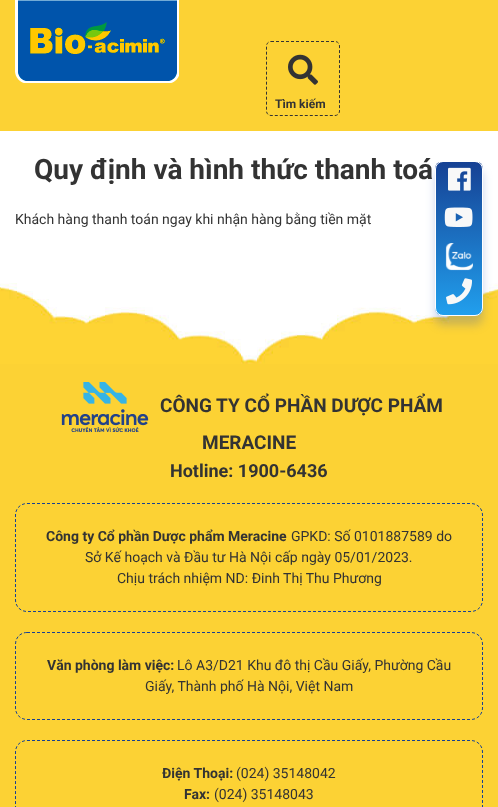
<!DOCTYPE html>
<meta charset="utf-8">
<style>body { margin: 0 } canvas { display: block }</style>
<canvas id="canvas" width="498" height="807"></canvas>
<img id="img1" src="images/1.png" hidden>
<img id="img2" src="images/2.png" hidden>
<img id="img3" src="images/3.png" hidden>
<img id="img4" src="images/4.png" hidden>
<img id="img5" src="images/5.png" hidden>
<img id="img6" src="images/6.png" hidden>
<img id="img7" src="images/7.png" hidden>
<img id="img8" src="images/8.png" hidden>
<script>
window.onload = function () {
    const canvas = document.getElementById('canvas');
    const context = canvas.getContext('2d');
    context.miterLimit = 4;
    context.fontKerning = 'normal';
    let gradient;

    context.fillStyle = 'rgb(255, 255, 255)';
    context.fillRect(0, 0, 498, 807);
    context.fillStyle = 'rgb(252, 210, 52)';
    context.fillRect(0, 0, 498, 131);
    context.drawImage(document.getElementById('img1'), 15, 0, 164, 83);
    context.beginPath();
    context.moveTo(271, 41.5);
    context.lineTo(335, 41.5);
    context.bezierCurveTo(337.5, 41.5, 339.5, 43.5, 339.5, 46);
    context.lineTo(339.5, 111);
    context.bezierCurveTo(339.5, 113.5, 337.5, 115.5, 335, 115.5);
    context.lineTo(271, 115.5);
    context.bezierCurveTo(268.5, 115.5, 266.5, 113.5, 266.5, 111);
    context.lineTo(266.5, 46);
    context.bezierCurveTo(266.5, 43.5, 268.5, 41.5, 271, 41.5);
    context.closePath();
    context.strokeStyle = 'rgb(51, 51, 51)';
    context.setLineDash([3, 2]);
    context.stroke();
    context.drawImage(document.getElementById('img2'), 288, 54, 30, 31);
    context.fillRect(0, 364, 498, 443);
    context.drawImage(document.getElementById('img3'), 0, 243, 498, 121);
    context.drawImage(document.getElementById('img4'), 61, 382, 88, 50);
    context.beginPath();
    context.moveTo(27, 503.5);
    context.lineTo(471, 503.5);
    context.bezierCurveTo(477.5, 503.5, 482.5, 508.5, 482.5, 515);
    context.lineTo(482.5, 600);
    context.bezierCurveTo(482.5, 606.5, 477.5, 611.5, 471, 611.5);
    context.lineTo(27, 611.5);
    context.bezierCurveTo(20.5, 611.5, 15.5, 606.5, 15.5, 600);
    context.lineTo(15.5, 515);
    context.bezierCurveTo(15.5, 508.5, 20.5, 503.5, 27, 503.5);
    context.closePath();
    context.strokeStyle = 'rgb(22, 65, 148)';
    context.stroke();
    context.beginPath();
    context.moveTo(27, 632.5);
    context.lineTo(471, 632.5);
    context.bezierCurveTo(477.5, 632.5, 482.5, 637.5, 482.5, 644);
    context.lineTo(482.5, 708);
    context.bezierCurveTo(482.5, 714.5, 477.5, 719.5, 471, 719.5);
    context.lineTo(27, 719.5);
    context.bezierCurveTo(20.5, 719.5, 15.5, 714.5, 15.5, 708);
    context.lineTo(15.5, 644);
    context.bezierCurveTo(15.5, 637.5, 20.5, 632.5, 27, 632.5);
    context.closePath();
    context.stroke();
    context.beginPath();
    context.moveTo(27, 740.5);
    context.lineTo(471, 740.5);
    context.bezierCurveTo(477.5, 740.5, 482.5, 745.5, 482.5, 752);
    context.lineTo(482.5, 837);
    context.bezierCurveTo(482.5, 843.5, 477.5, 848.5, 471, 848.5);
    context.lineTo(27, 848.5);
    context.bezierCurveTo(20.5, 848.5, 15.5, 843.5, 15.5, 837);
    context.lineTo(15.5, 752);
    context.bezierCurveTo(15.5, 745.5, 20.5, 740.5, 27, 740.5);
    context.closePath();
    context.stroke();
    context.fillStyle = 'rgba(38, 78, 184, 0.25)';
    context.filter = 'blur(5px)';
    context.beginPath();
    context.roundRect(435, 170, 48, 155, 8);
    context.fill();
    context.filter = 'none';
    context.save();
    context.beginPath();
    context.roundRect(435, 161, 48, 155, 8);
    context.clip();
    gradient = context.createLinearGradient(459, 162, 459, 315);
    gradient.addColorStop(0, 'rgb(22, 65, 148)');
    gradient.addColorStop(1, 'rgb(33, 159, 237)');
    context.fillStyle = gradient;
    context.fillRect(435, 162, 48, 153);
    context.restore();
    context.beginPath();
    context.roundRect(435.5, 161.5, 47, 154, 7.5);
    context.strokeStyle = 'rgb(255, 255, 255)';
    context.setLineDash([]);
    context.stroke();
    context.drawImage(document.getElementById('img5'), 448, 167, 23, 24);
    context.drawImage(document.getElementById('img6'), 444, 207, 29, 20);
    context.drawImage(document.getElementById('img7'), 445, 243, 28, 28);
    context.drawImage(document.getElementById('img8'), 446, 278, 26, 27);
    context.font = 'bold 12px Roboto';
    context.fillStyle = 'rgb(51, 51, 51)';
    context.fillText('Tìm kiếm', 275, 108);
    context.font = 'bold 28px Roboto';
    context.fillText('Quy định và hình thức thanh toá', 34, 179);
    context.font = '14px Roboto';
    context.fillText('Khách hàng thanh toán ngay khi nhận hàng bằng tiền mặt', 15, 224);
    context.font = 'bold 19px Roboto';
    context.fillText('CÔNG TY CỔ PHẦN DƯỢC PHẨM', 160, 412);
    context.fillText('MERACINE', 202, 449);
    context.font = 'bold 18px Roboto';
    context.fillText('Hotline: 1900-6436', 170, 477);
    context.font = 'bold 14px Roboto';
    context.fillText('Công ty Cổ phần Dược phẩm Meracine', 46, 541);
    context.font = '14px Roboto';
    context.fillText('GPKD: Số 0101887589 do', 291, 541);
    context.fillText('Sở Kế hoạch và Đầu tư Hà Nội cấp ngày 05/01/2023.', 85, 562);
    context.fillText('Chịu trách nhiệm ND: Đinh Thị Thu Phương', 117, 583);
    context.font = 'bold 14px Roboto';
    context.fillText('Văn phòng làm việc:', 47, 670);
    context.font = '14px Roboto';
    context.fillText('Lô A3/D21 Khu đô thị Cầu Giấy, Phường Cầu', 177, 670);
    context.fillText('Giấy, Thành phố Hà Nội, Việt Nam', 145, 691);
    context.font = 'bold 14px Roboto';
    context.fillText('Điện Thoại:', 162, 778);
    context.font = '14px Roboto';
    context.fillText('(024) 35148042', 236, 778);
    context.font = 'bold 14px Roboto';
    context.fillText('Fax:', 184, 799);
    context.font = '14px Roboto';
    context.fillText('(024) 35148043', 214, 799);
};
</script>
